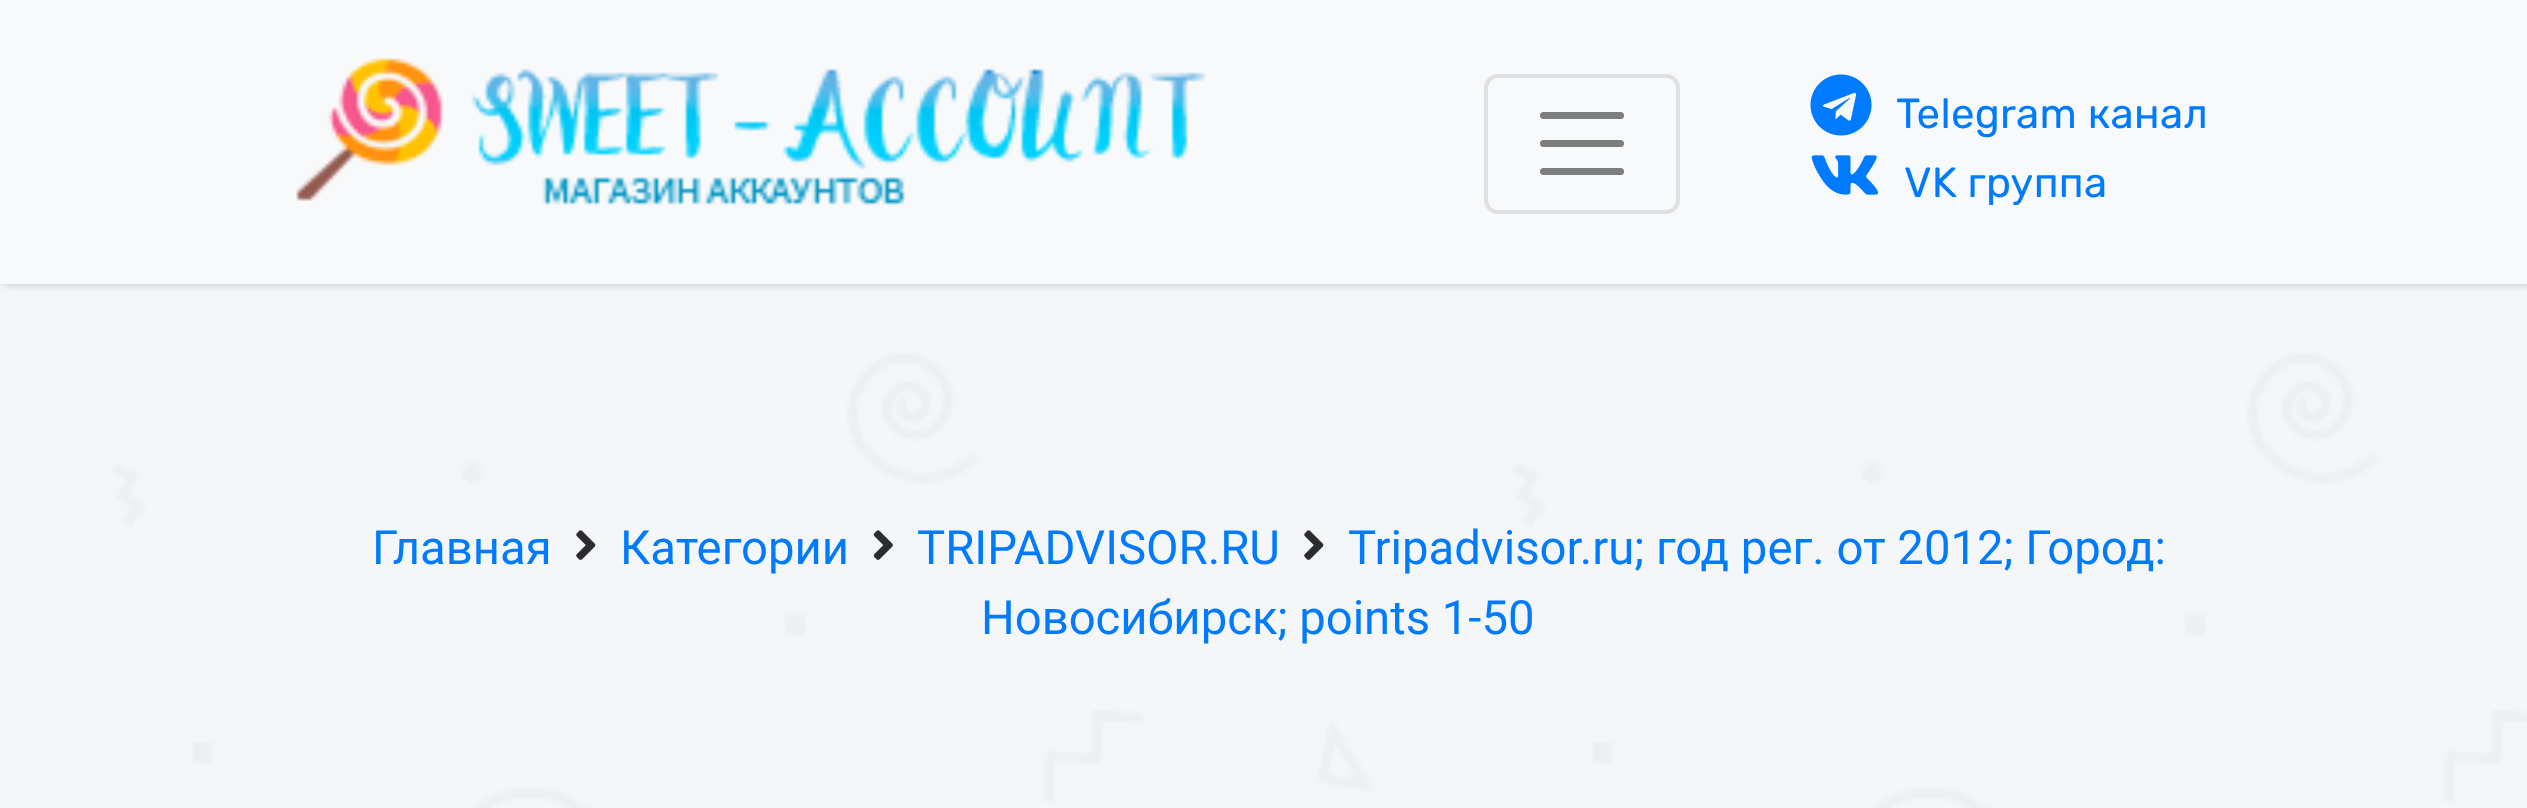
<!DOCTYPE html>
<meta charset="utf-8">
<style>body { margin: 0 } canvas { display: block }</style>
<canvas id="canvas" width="2527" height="808"></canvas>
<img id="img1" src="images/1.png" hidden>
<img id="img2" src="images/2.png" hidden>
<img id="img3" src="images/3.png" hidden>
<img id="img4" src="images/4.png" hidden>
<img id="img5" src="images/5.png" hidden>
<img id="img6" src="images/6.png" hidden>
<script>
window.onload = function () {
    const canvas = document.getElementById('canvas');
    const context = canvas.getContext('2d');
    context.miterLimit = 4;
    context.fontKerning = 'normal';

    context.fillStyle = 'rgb(238, 242, 245)';
    context.fillRect(0, 0, 2527, 808);
    context.drawImage(document.getElementById('img1'), 0, 284, 2527, 524);
    context.fillStyle = 'rgba(0, 0, 0, 0.2)';
    context.filter = 'blur(5px)';
    context.beginPath();
    context.rect(4, 0, 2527, 284);
    context.fill();
    context.filter = 'none';
    context.fillStyle = 'rgb(248, 249, 250)';
    context.fillRect(0, 0, 2527, 284);
    context.drawImage(document.getElementById('img2'), 296, 58, 910, 147);
    context.beginPath();
    context.roundRect(1486, 76, 192, 136, 12);
    context.strokeStyle = 'rgb(223, 224, 225)';
    context.lineWidth = 4;
    context.stroke();
    context.beginPath();
    context.moveTo(1543.5, 115.5);
    context.lineTo(1620.5, 115.5);
    context.moveTo(1543.5, 143.5);
    context.lineTo(1620.5, 143.5);
    context.moveTo(1543.5, 171.5);
    context.lineTo(1620.5, 171.5);
    context.strokeStyle = 'rgb(124, 125, 125)';
    context.lineWidth = 7;
    context.lineCap = 'round';
    context.stroke();
    context.drawImage(document.getElementById('img3'), 1810, 74, 62, 62);
    context.drawImage(document.getElementById('img4'), 1811, 155, 67, 40);
    context.drawImage(document.getElementById('img5'), 576, 530, 20, 30);
    context.drawImage(document.getElementById('img6'), 873, 530, 20, 30);
    context.drawImage(document.getElementById('img5'), 1304, 530, 20, 30);
    context.letterSpacing = '0.3px';
    context.font = '42px Rubik';
    context.fillStyle = 'rgb(0, 123, 255)';
    context.fillText('Telegram канал', 1896, 128);
    context.fillText('VK группа', 1904, 197);
    context.letterSpacing = '0px';
    context.font = '47.25px Roboto';
    context.fillText('Главная', 372, 564);
    context.fillText('Категории', 620, 564);
    context.fillText('TRIPADVISOR.RU', 917, 564);
    context.fillText('Tripadvisor.ru; год рег. от 2012; Город:', 1348, 564);
    context.fillText('Новосибирск; points 1-50', 981, 634);
};
</script>
